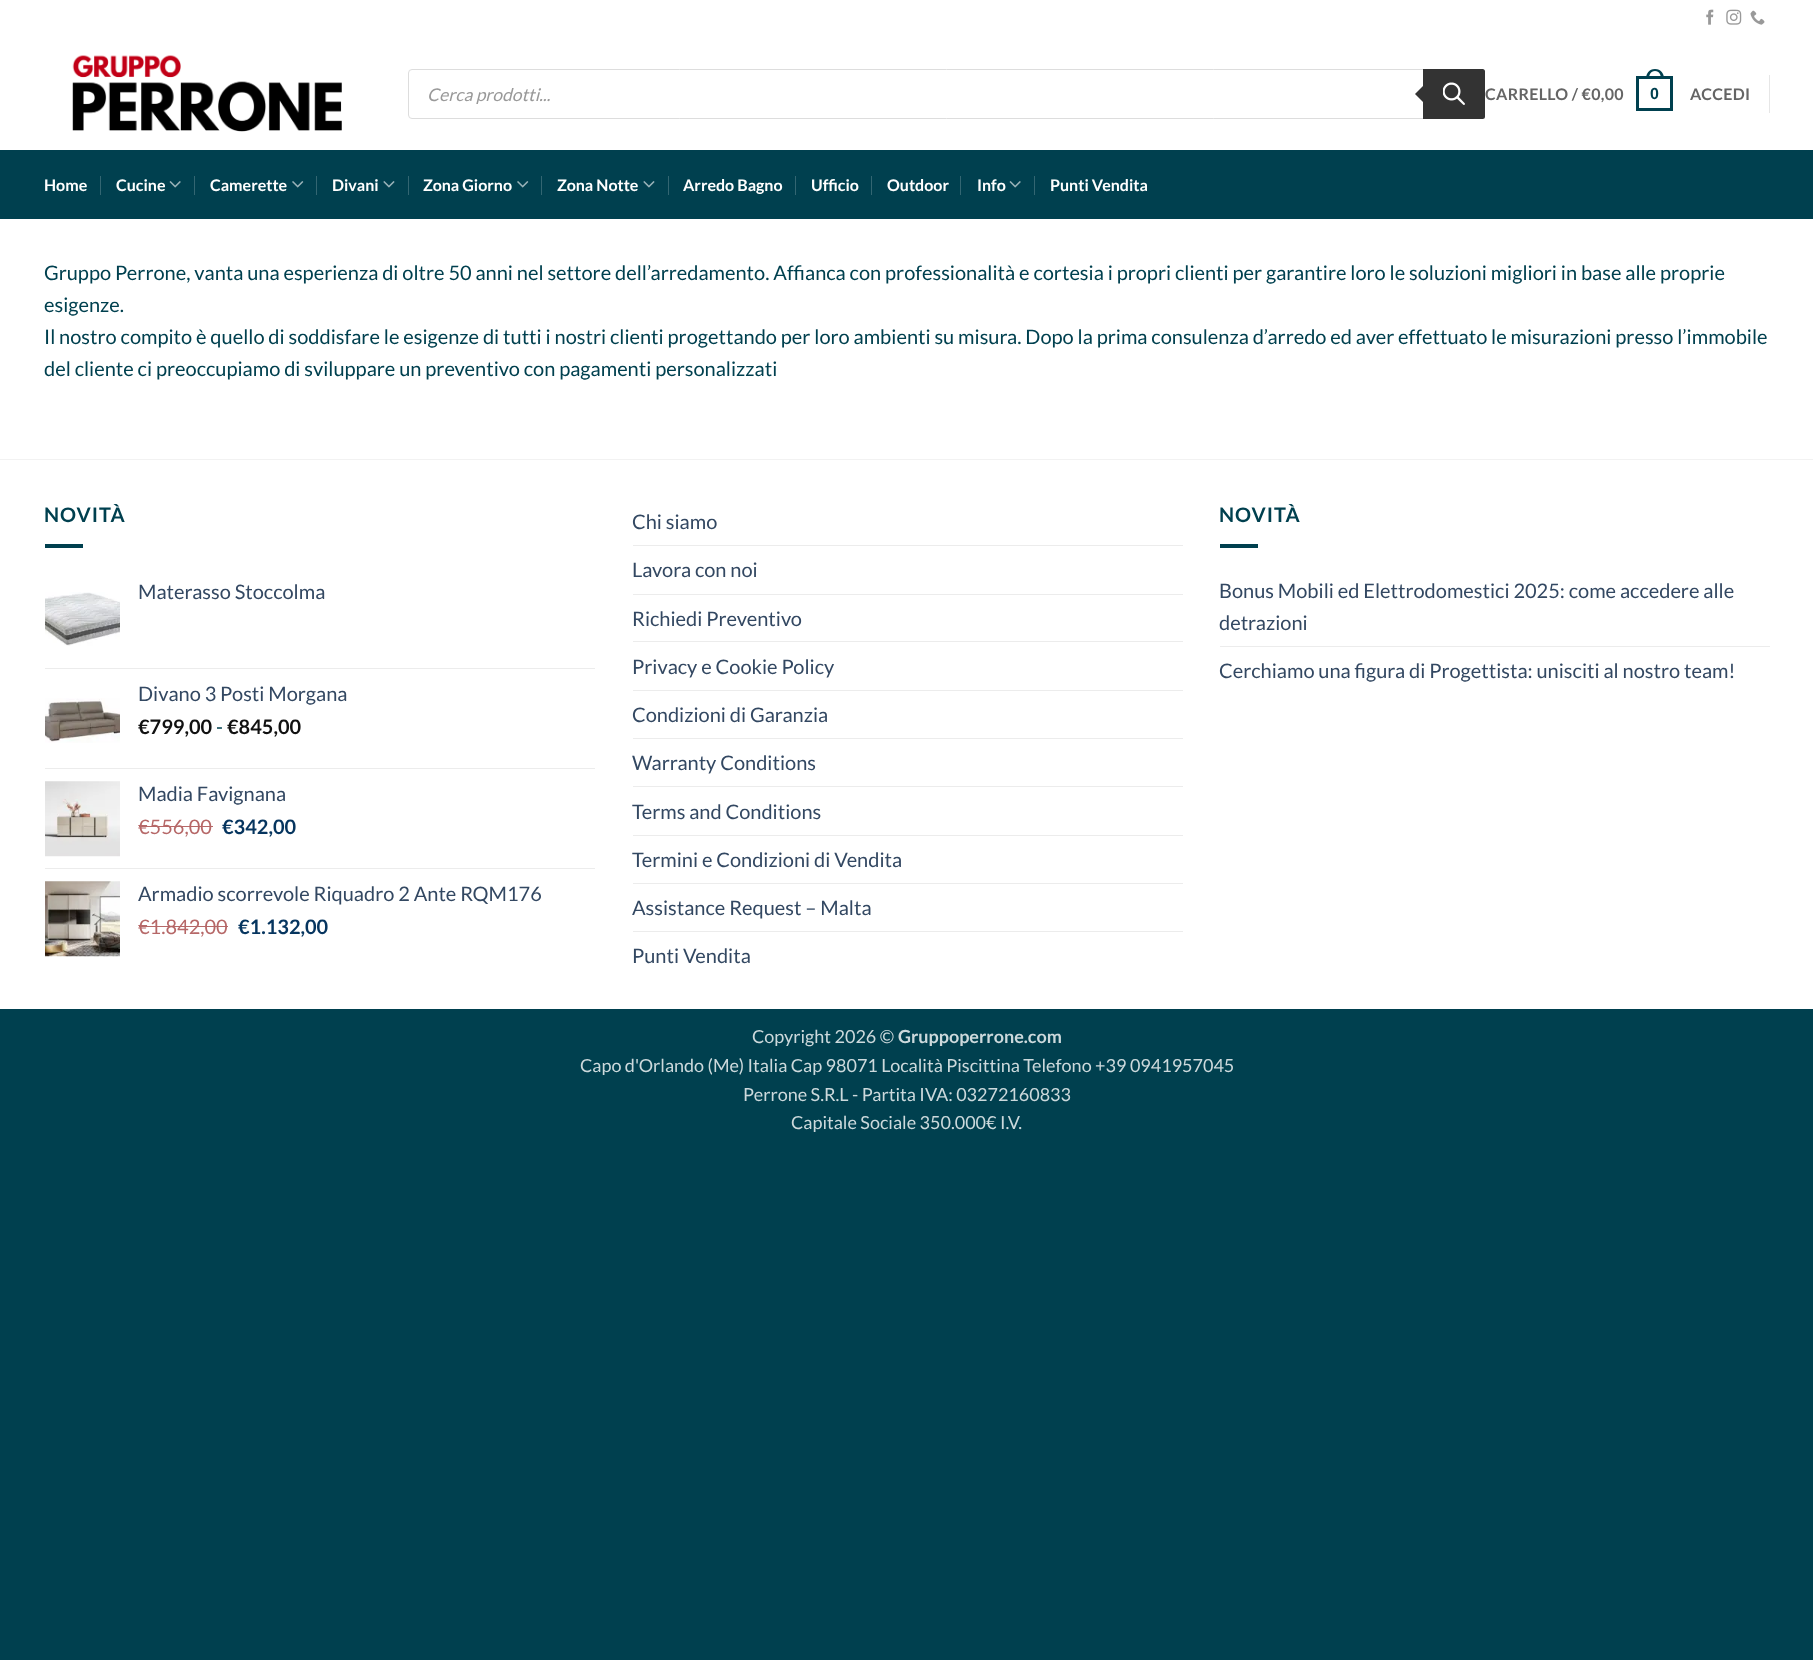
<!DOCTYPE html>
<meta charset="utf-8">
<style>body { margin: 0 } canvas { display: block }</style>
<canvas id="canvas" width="1813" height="1660"></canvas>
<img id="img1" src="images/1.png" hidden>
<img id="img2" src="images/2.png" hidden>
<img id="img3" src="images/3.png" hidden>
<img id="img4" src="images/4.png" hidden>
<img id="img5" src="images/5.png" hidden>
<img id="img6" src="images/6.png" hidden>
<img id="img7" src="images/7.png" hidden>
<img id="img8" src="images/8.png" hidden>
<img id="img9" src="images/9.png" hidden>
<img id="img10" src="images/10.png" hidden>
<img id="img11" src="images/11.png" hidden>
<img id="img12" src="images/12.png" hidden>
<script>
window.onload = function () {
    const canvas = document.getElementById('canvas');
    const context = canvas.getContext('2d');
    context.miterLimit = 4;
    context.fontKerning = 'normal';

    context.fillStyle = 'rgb(0, 64, 79)';
    context.fillRect(0, 0, 1813, 1660);
    context.fillStyle = 'rgb(255, 255, 255)';
    context.fillRect(0, 0, 1813, 1009);
    context.drawImage(document.getElementById('img1'), 1706, 9, 8, 16);
    context.drawImage(document.getElementById('img2'), 1726, 9, 16, 16);
    context.drawImage(document.getElementById('img3'), 1750, 10, 15, 15);
    context.drawImage(document.getElementById('img4'), 72, 55, 270, 77);
    context.beginPath();
    context.roundRect(408.5, 69.5, 1076, 49, 3.5);
    context.strokeStyle = 'rgb(221, 221, 221)';
    context.stroke();
    context.fillStyle = 'rgb(51, 51, 51)';
    context.beginPath();
    context.roundRect(1423, 69, 62, 50, [0, 2.5, 2.5, 0]);
    context.fill();
    context.beginPath();
    context.moveTo(1425, 84);
    context.lineTo(1425, 104);
    context.lineTo(1415, 94);
    context.closePath();
    context.fill();
    context.drawImage(document.getElementById('img5'), 1443, 82, 22, 23);
    context.strokeStyle = 'rgb(0, 64, 79)';
    context.lineWidth = 3;
    context.strokeRect(1637.5, 77.5, 34, 32);
    context.fillStyle = 'rgb(0, 64, 79)';
    context.beginPath();
    context.moveTo(1655, 69);
    context.bezierCurveTo(1661, 69, 1664, 73.5, 1664, 79);
    context.lineTo(1646, 79);
    context.bezierCurveTo(1646, 73.5, 1649, 69, 1655, 69);
    context.closePath();
    context.moveTo(1655, 71);
    context.bezierCurveTo(1659.5, 71, 1661, 75, 1661, 79);
    context.lineTo(1649, 79);
    context.bezierCurveTo(1649, 75, 1650.5, 71, 1655, 71);
    context.closePath();
    context.fill('evenodd');
    context.fillStyle = 'rgb(230, 230, 230)';
    context.fillRect(1769, 75, 1, 38);
    context.fillStyle = 'rgb(0, 64, 79)';
    context.fillRect(0, 150, 1813, 69);
    context.fillStyle = 'rgb(51, 102, 114)';
    context.fillRect(100, 176, 1, 19);
    context.drawImage(document.getElementById('img6'), 169, 181, 12, 7);
    context.fillRect(194, 176, 1, 19);
    context.drawImage(document.getElementById('img7'), 292, 181, 12, 7);
    context.fillRect(316, 176, 1, 19);
    context.drawImage(document.getElementById('img8'), 383, 181, 12, 7);
    context.fillRect(408, 176, 1, 19);
    context.drawImage(document.getElementById('img7'), 517, 181, 12, 7);
    context.fillRect(541, 176, 1, 19);
    context.drawImage(document.getElementById('img8'), 643, 181, 12, 7);
    context.fillRect(668, 176, 1, 19);
    context.fillRect(795, 176, 1, 19);
    context.fillRect(871, 176, 1, 19);
    context.fillRect(960, 176, 1, 19);
    context.drawImage(document.getElementById('img6'), 1009, 181, 12, 7);
    context.fillRect(1034, 176, 1, 19);
    context.fillStyle = 'rgb(242, 242, 242)';
    context.fillRect(0, 459, 1813, 1);
    context.fillStyle = 'rgb(0, 64, 79)';
    context.fillRect(45, 544, 38, 4);
    context.drawImage(document.getElementById('img9'), 45, 592, 75, 54);
    context.fillStyle = 'rgb(236, 236, 236)';
    context.fillRect(45, 668, 550, 1);
    context.drawImage(document.getElementById('img10'), 45, 698, 75, 45);
    context.fillRect(45, 768, 550, 1);
    context.drawImage(document.getElementById('img11'), 45, 781, 75, 76);
    context.fillStyle = 'rgb(182, 104, 104)';
    context.fillRect(139, 826, 74, 1);
    context.fillStyle = 'rgb(236, 236, 236)';
    context.fillRect(45, 868, 550, 1);
    context.drawImage(document.getElementById('img12'), 45, 881, 75, 76);
    context.fillStyle = 'rgb(182, 104, 104)';
    context.fillRect(139, 926, 89, 1);
    context.fillStyle = 'rgb(236, 236, 236)';
    context.fillRect(633, 545, 550, 1);
    context.fillRect(633, 594, 550, 1);
    context.fillRect(633, 641, 550, 1);
    context.fillRect(633, 690, 550, 1);
    context.fillRect(633, 738, 550, 1);
    context.fillRect(633, 786, 550, 1);
    context.fillRect(633, 835, 550, 1);
    context.fillRect(633, 883, 550, 1);
    context.fillRect(633, 931, 550, 1);
    context.fillStyle = 'rgb(0, 64, 79)';
    context.fillRect(1220, 544, 38, 4);
    context.fillStyle = 'rgb(236, 236, 236)';
    context.fillRect(1220, 646, 550, 1);
    context.font = 'italic 17.5px Lato';
    context.fillStyle = 'rgb(153, 153, 153)';
    context.fillText('Cerca prodotti...', 427, 101);
    context.letterSpacing = '0.3px';
    context.font = 'bold 16px Lato';
    context.fillStyle = 'rgb(101, 101, 101)';
    context.fillText('CARRELLO / €0,00', 1485, 100);
    context.font = 'bold 16px Liberation Sans';
    context.fillStyle = 'rgb(0, 64, 79)';
    context.fillText('0', 1650, 99);
    context.font = 'bold 16px Lato';
    context.fillStyle = 'rgb(101, 101, 101)';
    context.fillText('ACCEDI', 1690, 100);
    context.letterSpacing = '0px';
    context.fillStyle = 'rgb(255, 255, 255)';
    context.fillText('Home', 44, 191);
    context.fillText('Cucine', 116, 191);
    context.fillText('Camerette', 210, 191);
    context.fillText('Divani', 332, 191);
    context.fillText('Zona Giorno', 423, 191);
    context.fillText('Zona Notte', 557, 191);
    context.fillText('Arredo Bagno', 683, 191);
    context.fillText('Ufficio', 811, 191);
    context.fillText('Outdoor', 887, 191);
    context.fillText('Info', 977, 191);
    context.fillText('Punti Vendita', 1050, 191);
    context.font = '20px Lato';
    context.fillStyle = 'rgb(0, 64, 79)';
    context.fillText('Gruppo Perrone, vanta una esperienza di oltre 50 anni nel settore dell’arredamento. Affianca con professionalità e cortesia i propri clienti per garantire loro le soluzioni migliori in base alle proprie', 44, 280);
    context.fillText('esigenze.', 44, 312);
    context.fillText('Il nostro compito è quello di soddisfare le esigenze di tutti i nostri clienti progettando per loro ambienti su misura. Dopo la prima consulenza d’arredo ed aver effettuato le misurazioni presso l’immobile', 44, 344);
    context.fillText('del cliente ci preoccupiamo di sviluppare un preventivo con pagamenti personalizzati', 44, 376);
    context.letterSpacing = '1px';
    context.font = 'bold 20px Lato';
    context.fillText('NOVITÀ', 44, 522);
    context.letterSpacing = '0px';
    context.font = '20px Lato';
    context.fillStyle = 'rgb(51, 72, 98)';
    context.fillText('Materasso Stoccolma', 138, 599);
    context.fillText('Divano 3 Posti Morgana', 138, 701);
    context.font = 'bold 20px Lato';
    context.fillStyle = 'rgb(17, 17, 17)';
    context.fillText('€799,00', 138, 734);
    context.font = '20px Lato';
    context.fillStyle = 'rgb(0, 64, 79)';
    context.fillText('-', 216, 734);
    context.font = 'bold 20px Lato';
    context.fillStyle = 'rgb(17, 17, 17)';
    context.fillText('€845,00', 227, 734);
    context.font = '20px Lato';
    context.fillStyle = 'rgb(51, 72, 98)';
    context.fillText('Madia Favignana', 138, 801);
    context.fillStyle = 'rgb(182, 104, 104)';
    context.fillText('€556,00', 138, 834);
    context.font = 'bold 20px Lato';
    context.fillStyle = 'rgb(6, 53, 95)';
    context.fillText('€342,00', 222, 834);
    context.font = '20px Lato';
    context.fillStyle = 'rgb(51, 72, 98)';
    context.fillText('Armadio scorrevole Riquadro 2 Ante RQM176', 138, 901);
    context.fillStyle = 'rgb(182, 104, 104)';
    context.fillText('€1.842,00', 138, 934);
    context.font = 'bold 20px Lato';
    context.fillStyle = 'rgb(6, 53, 95)';
    context.fillText('€1.132,00', 238, 934);
    context.font = '20px Lato';
    context.fillStyle = 'rgb(51, 72, 98)';
    context.fillText('Chi siamo', 632, 529);
    context.fillText('Lavora con noi', 632, 577);
    context.fillText('Richiedi Preventivo', 632, 626);
    context.fillText('Privacy e Cookie Policy', 632, 674);
    context.fillText('Condizioni di Garanzia', 632, 722);
    context.fillText('Warranty Conditions', 632, 770);
    context.fillText('Terms and Conditions', 632, 819);
    context.fillText('Termini e Condizioni di Vendita', 632, 867);
    context.fillText('Assistance Request – Malta', 632, 915);
    context.fillText('Punti Vendita', 632, 963);
    context.letterSpacing = '1px';
    context.font = 'bold 20px Lato';
    context.fillStyle = 'rgb(0, 64, 79)';
    context.fillText('NOVITÀ', 1219, 522);
    context.letterSpacing = '0px';
    context.font = '20px Lato';
    context.fillStyle = 'rgb(51, 72, 98)';
    context.fillText('Bonus Mobili ed Elettrodomestici 2025: come accedere alle', 1219, 598);
    context.fillText('detrazioni', 1219, 630);
    context.fillText('Cerchiamo una figura di Progettista: unisciti al nostro team!', 1219, 678);
    context.font = '18px Lato';
    context.fillStyle = 'rgb(204, 217, 220)';
    context.fillText('Copyright 2026 ©', 752, 1043);
    context.font = 'bold 18px Lato';
    context.fillText('Gruppoperrone.com', 898, 1043);
    context.font = '18px Lato';
    context.fillText('Capo d\'Orlando (Me) Italia Cap 98071 Località Piscittina Telefono +39 0941957045', 580, 1072);
    context.fillText('Perrone S.R.L - Partita IVA: 03272160833', 743, 1101);
    context.fillText('Capitale Sociale 350.000€ I.V.', 791, 1129);
};
</script>
